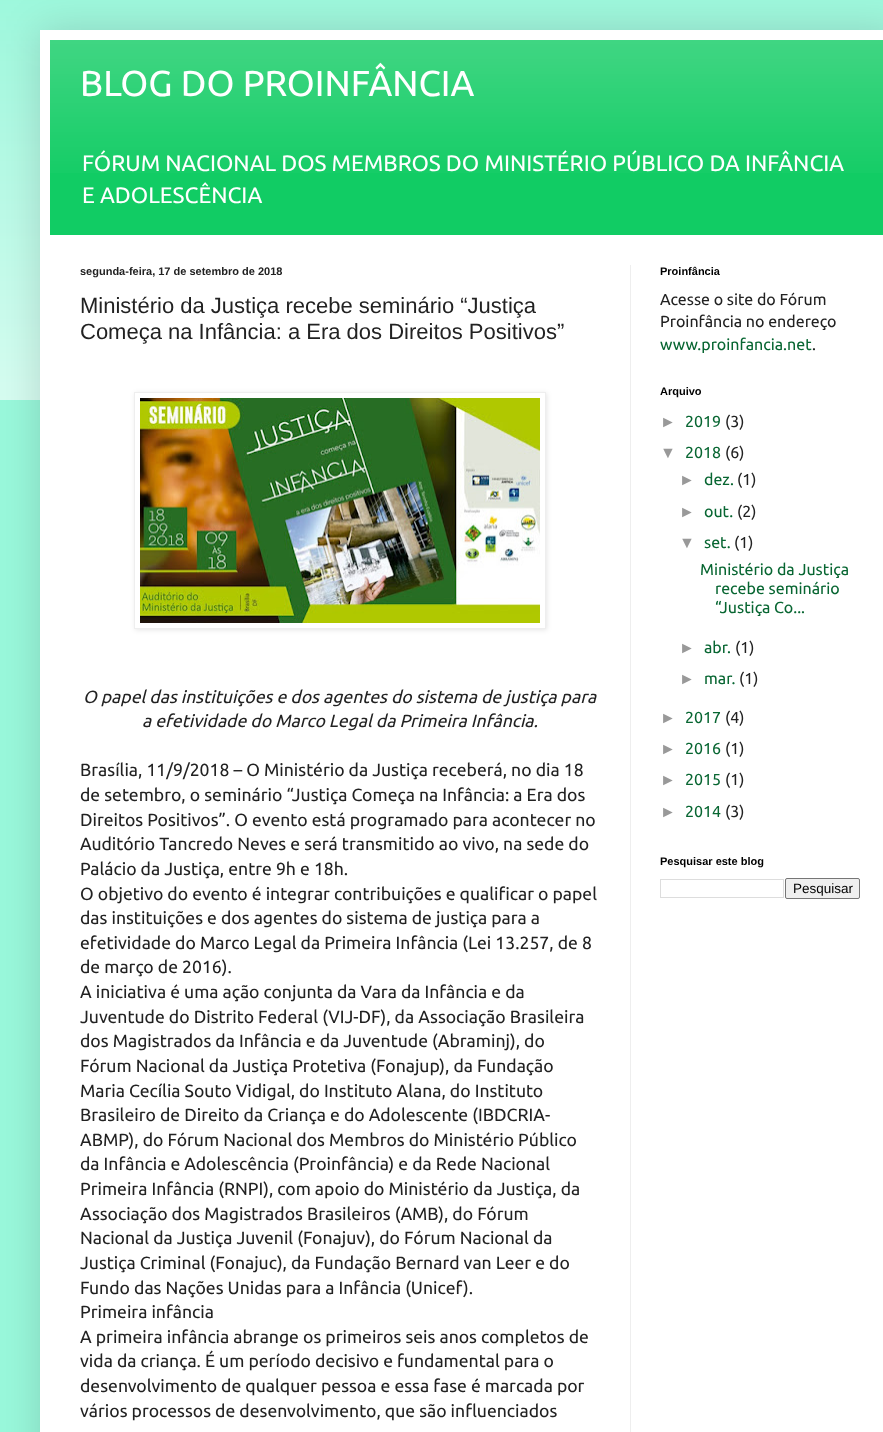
<!DOCTYPE html>
<meta charset="utf-8">
<style>body { margin: 0 } canvas { display: block }</style>
<canvas id="canvas" width="883" height="1432"></canvas>
<img id="img1" src="images/1.png" hidden>
<img id="img2" src="images/2.png" hidden>
<img id="img3" src="images/3.png" hidden>
<script>
window.onload = function () {
    const canvas = document.getElementById('canvas');
    const context = canvas.getContext('2d');
    context.miterLimit = 4;
    context.fontKerning = 'normal';

    context.fillStyle = 'rgb(153, 248, 219)';
    context.fillRect(0, 0, 883, 1432);
    context.drawImage(document.getElementById('img1'), 0, 0, 883, 400);
    context.fillStyle = 'rgba(0, 0, 0, 0.15)';
    context.filter = 'blur(20px)';
    context.beginPath();
    context.rect(40, 30, 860, 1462);
    context.fill();
    context.filter = 'none';
    context.fillStyle = 'rgb(255, 255, 255)';
    context.fillRect(40, 30, 843, 1402);
    context.fillStyle = 'rgb(17, 204, 100)';
    context.fillRect(50, 40, 833, 195);
    context.drawImage(document.getElementById('img2'), 50, 40, 833, 133);
    context.fillStyle = 'rgb(238, 238, 238)';
    context.fillRect(630, 265, 1, 1167);
    context.save();
    context.beginPath();
    context.moveTo(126, 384);
    context.lineTo(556, 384);
    context.lineTo(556, 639);
    context.lineTo(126, 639);
    context.closePath();
    context.moveTo(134, 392);
    context.lineTo(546, 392);
    context.lineTo(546, 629);
    context.lineTo(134, 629);
    context.closePath();
    context.clip('evenodd');
    context.fillStyle = 'rgba(0, 0, 0, 0.1)';
    context.filter = 'blur(2.5px)';
    context.beginPath();
    context.rect(135, 393, 412, 237);
    context.fill();
    context.filter = 'none';
    context.restore();
    context.strokeStyle = 'rgb(238, 238, 238)';
    context.strokeRect(134.5, 392.5, 411, 236);
    context.drawImage(document.getElementById('img3'), 140, 398, 400, 225);
    context.strokeStyle = 'rgb(221, 221, 221)';
    context.strokeRect(660.5, 879.5, 123, 18);
    context.fillStyle = 'rgb(239, 239, 239)';
    context.beginPath();
    context.roundRect(785.5, 878.5, 74, 20, 1.5);
    context.fill();
    context.strokeStyle = 'rgb(118, 118, 118)';
    context.stroke();
    context.font = '36px Ubuntu';
    context.fillStyle = 'rgb(255, 255, 255)';
    context.fillText('BLOG DO PROINFÂNCIA', 80, 96);
    context.font = '22.4px Ubuntu';
    context.fillText('FÓRUM NACIONAL DOS MEMBROS DO MINISTÉRIO PÚBLICO DA INFÂNCIA', 82, 171);
    context.fillText('E ADOLESCÊNCIA', 82, 203);
    context.font = 'bold 11px Liberation Sans';
    context.fillStyle = 'rgb(34, 34, 34)';
    context.fillText('segunda-feira, 17 de setembro de 2018', 80, 275);
    context.font = '22px Liberation Sans';
    context.fillText('Ministério da Justiça recebe seminário “Justiça', 80, 313);
    context.fillText('Começa na Infância: a Era dos Direitos Positivos”', 80, 339);
    context.font = 'italic 17.6px Ubuntu';
    context.fillText('O papel das instituições e dos agentes do sistema de justiça para', 83, 703);
    context.fillText('a efetividade do Marco Legal da Primeira Infância.', 142, 727);
    context.font = '17.6px Ubuntu';
    context.fillText('Brasília, 11/9/2018 – O Ministério da Justiça receberá, no dia 18', 80, 776);
    context.fillText('de setembro, o seminário “Justiça Começa na Infância: a Era dos', 80, 801);
    context.fillText('Direitos Positivos”. O evento está programado para acontecer no', 80, 826);
    context.fillText('Auditório Tancredo Neves e será transmitido ao vivo, na sede do', 80, 850);
    context.fillText('Palácio da Justiça, entre 9h e 18h.', 80, 875);
    context.fillText('O objetivo do evento é integrar contribuições e qualificar o papel', 80, 900);
    context.fillText('das instituições e dos agentes do sistema de justiça para a', 80, 924);
    context.fillText('efetividade do Marco Legal da Primeira Infância (Lei 13.257, de 8', 80, 949);
    context.fillText('de março de 2016).', 80, 973);
    context.fillText('A iniciativa é uma ação conjunta da Vara da Infância e da', 80, 998);
    context.fillText('Juventude do Distrito Federal (VIJ-DF), da Associação Brasileira', 80, 1023);
    context.fillText('dos Magistrados da Infância e da Juventude (Abraminj), do', 80, 1047);
    context.fillText('Fórum Nacional da Justiça Protetiva (Fonajup), da Fundação', 80, 1072);
    context.fillText('Maria Cecília Souto Vidigal, do Instituto Alana, do Instituto', 80, 1097);
    context.fillText('Brasileiro de Direito da Criança e do Adolescente (IBDCRIA-', 80, 1121);
    context.fillText('ABMP), do Fórum Nacional dos Membros do Ministério Público', 80, 1146);
    context.fillText('da Infância e Adolescência (Proinfância) e da Rede Nacional', 80, 1170);
    context.fillText('Primeira Infância (RNPI), com apoio do Ministério da Justiça, da', 80, 1195);
    context.fillText('Associação dos Magistrados Brasileiros (AMB), do Fórum', 80, 1220);
    context.fillText('Nacional da Justiça Juvenil (Fonajuv), do Fórum Nacional da', 80, 1244);
    context.fillText('Justiça Criminal (Fonajuc), da Fundação Bernard van Leer e do', 80, 1269);
    context.fillText('Fundo das Nações Unidas para a Infância (Unicef).', 80, 1294);
    context.fillText('Primeira infância', 80, 1318);
    context.fillText('A primeira infância abrange os primeiros seis anos completos de', 80, 1343);
    context.fillText('vida da criança. É um período decisivo e fundamental para o', 80, 1367);
    context.fillText('desenvolvimento de qualquer pessoa e essa fase é marcada por', 80, 1392);
    context.fillText('vários processos de desenvolvimento, que são influenciados', 80, 1417);
    context.font = 'bold 11px Liberation Sans';
    context.fillStyle = 'rgb(0, 0, 0)';
    context.fillText('Proinfância', 660, 275);
    context.font = '16px Ubuntu';
    context.fillStyle = 'rgb(34, 34, 34)';
    context.fillText('Acesse o site do Fórum', 660, 305);
    context.fillText('Proinfância no endereço', 660, 327);
    context.fillStyle = 'rgb(8, 102, 50)';
    context.fillText('www.proinfancia.net', 660, 350);
    context.fillStyle = 'rgb(34, 34, 34)';
    context.fillText('.', 812, 350);
    context.font = 'bold 11px Liberation Sans';
    context.fillStyle = 'rgb(0, 0, 0)';
    context.fillText('Arquivo', 660, 395);
    context.font = '16px Liberation Sans';
    context.fillStyle = 'rgb(153, 153, 153)';
    context.fillText('►', 660, 427);
    context.font = '16px Ubuntu';
    context.fillStyle = 'rgb(8, 102, 50)';
    context.fillText('2019', 685, 427);
    context.fillStyle = 'rgb(34, 34, 34)';
    context.fillText('(3)', 725, 427);
    context.font = '16px Liberation Sans';
    context.fillStyle = 'rgb(153, 153, 153)';
    context.fillText('▼', 660, 458);
    context.font = '16px Ubuntu';
    context.fillStyle = 'rgb(8, 102, 50)';
    context.fillText('2018', 685, 458);
    context.fillStyle = 'rgb(34, 34, 34)';
    context.fillText('(6)', 725, 458);
    context.font = '16px Liberation Sans';
    context.fillStyle = 'rgb(153, 153, 153)';
    context.fillText('►', 679, 485);
    context.font = '16px Ubuntu';
    context.fillStyle = 'rgb(8, 102, 50)';
    context.fillText('dez.', 704, 485);
    context.fillStyle = 'rgb(34, 34, 34)';
    context.fillText('(1)', 737, 485);
    context.font = '16px Liberation Sans';
    context.fillStyle = 'rgb(153, 153, 153)';
    context.fillText('►', 679, 517);
    context.font = '16px Ubuntu';
    context.fillStyle = 'rgb(8, 102, 50)';
    context.fillText('out.', 704, 517);
    context.fillStyle = 'rgb(34, 34, 34)';
    context.fillText('(2)', 737, 517);
    context.font = '16px Liberation Sans';
    context.fillStyle = 'rgb(153, 153, 153)';
    context.fillText('▼', 679, 548);
    context.font = '16px Ubuntu';
    context.fillStyle = 'rgb(8, 102, 50)';
    context.fillText('set.', 704, 548);
    context.fillStyle = 'rgb(34, 34, 34)';
    context.fillText('(1)', 734, 548);
    context.fillStyle = 'rgb(8, 102, 50)';
    context.fillText('Ministério da Justiça', 700, 575);
    context.fillText('recebe seminário', 715, 594);
    context.fillText('“Justiça Co...', 715, 613);
    context.font = '16px Liberation Sans';
    context.fillStyle = 'rgb(153, 153, 153)';
    context.fillText('►', 679, 653);
    context.font = '16px Ubuntu';
    context.fillStyle = 'rgb(8, 102, 50)';
    context.fillText('abr.', 704, 653);
    context.fillStyle = 'rgb(34, 34, 34)';
    context.fillText('(1)', 735, 653);
    context.font = '16px Liberation Sans';
    context.fillStyle = 'rgb(153, 153, 153)';
    context.fillText('►', 679, 684);
    context.font = '16px Ubuntu';
    context.fillStyle = 'rgb(8, 102, 50)';
    context.fillText('mar.', 704, 684);
    context.fillStyle = 'rgb(34, 34, 34)';
    context.fillText('(1)', 739, 684);
    context.font = '16px Liberation Sans';
    context.fillStyle = 'rgb(153, 153, 153)';
    context.fillText('►', 660, 723);
    context.font = '16px Ubuntu';
    context.fillStyle = 'rgb(8, 102, 50)';
    context.fillText('2017', 685, 723);
    context.fillStyle = 'rgb(34, 34, 34)';
    context.fillText('(4)', 725, 723);
    context.font = '16px Liberation Sans';
    context.fillStyle = 'rgb(153, 153, 153)';
    context.fillText('►', 660, 754);
    context.font = '16px Ubuntu';
    context.fillStyle = 'rgb(8, 102, 50)';
    context.fillText('2016', 685, 754);
    context.fillStyle = 'rgb(34, 34, 34)';
    context.fillText('(1)', 725, 754);
    context.font = '16px Liberation Sans';
    context.fillStyle = 'rgb(153, 153, 153)';
    context.fillText('►', 660, 785);
    context.font = '16px Ubuntu';
    context.fillStyle = 'rgb(8, 102, 50)';
    context.fillText('2015', 685, 785);
    context.fillStyle = 'rgb(34, 34, 34)';
    context.fillText('(1)', 725, 785);
    context.font = '16px Liberation Sans';
    context.fillStyle = 'rgb(153, 153, 153)';
    context.fillText('►', 660, 817);
    context.font = '16px Ubuntu';
    context.fillStyle = 'rgb(8, 102, 50)';
    context.fillText('2014', 685, 817);
    context.fillStyle = 'rgb(34, 34, 34)';
    context.fillText('(3)', 725, 817);
    context.font = 'bold 11px Liberation Sans';
    context.fillStyle = 'rgb(0, 0, 0)';
    context.fillText('Pesquisar este blog', 660, 865);
    context.font = '13.5px Liberation Sans';
    context.fillText('Pesquisar', 793, 893);
};
</script>
